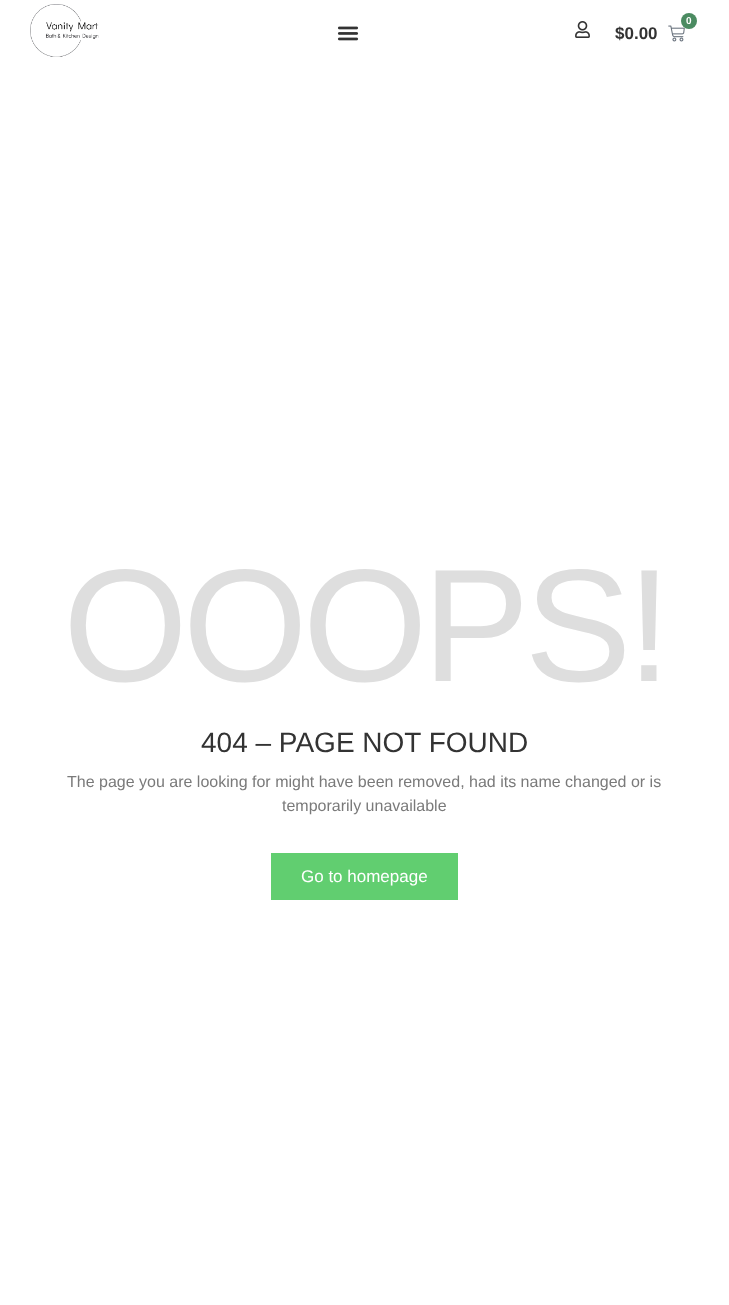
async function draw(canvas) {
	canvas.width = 729;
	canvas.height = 1305;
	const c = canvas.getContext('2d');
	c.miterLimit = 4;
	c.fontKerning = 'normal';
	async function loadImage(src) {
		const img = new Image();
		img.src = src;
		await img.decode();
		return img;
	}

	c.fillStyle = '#fff';
	c.fillRect(0, 0, 729, 1305);
	c.drawImage(await loadImage('img1.png'), 30, 4, 69, 53);
	c.drawImage(await loadImage('img2.png'), 337, 26, 22, 15);
	c.drawImage(await loadImage('img3.png'), 575, 21, 15, 17);
	c.drawImage(await loadImage('img4.png'), 668, 25, 17, 17);
	c.fillStyle = '#4b8b61';
	c.beginPath();
	c.arc(689, 21, 8, 0, 2 * Math.PI);
	c.fill();
	c.font = 'bold 10px Liberation Sans';
	c.fillStyle = '#fff';
	c.fillText('0', 686, 24);
	c.font = 'bold 17px Liberation Sans';
	c.fillStyle = '#333';
	c.fillText('$0.00', 615, 39);
	c.letterSpacing = '-5px';
	c.font = '160.5px Liberation Sans';
	c.fillStyle = '#dedede';
	c.fillText('OOOPS!', 63, 681);
	c.letterSpacing = '0px';
	c.font = '28px Liberation Sans';
	c.fillStyle = '#333';
	c.fillText('404 – PAGE NOT FOUND', 201, 752);
	c.font = '16px Liberation Sans';
	c.fillStyle = '#7a7a7a';
	c.fillText('The page you are looking for might have been removed, had its name changed or is', 67, 787);
	c.fillText('temporarily unavailable', 282, 811);
	c.fillStyle = '#61ce70';
	c.fillRect(271, 853, 187, 47);
	c.font = '17px Liberation Sans';
	c.fillStyle = '#fff';
	c.fillText('Go to homepage', 301, 882);
}

draw(document.querySelector('canvas'));
